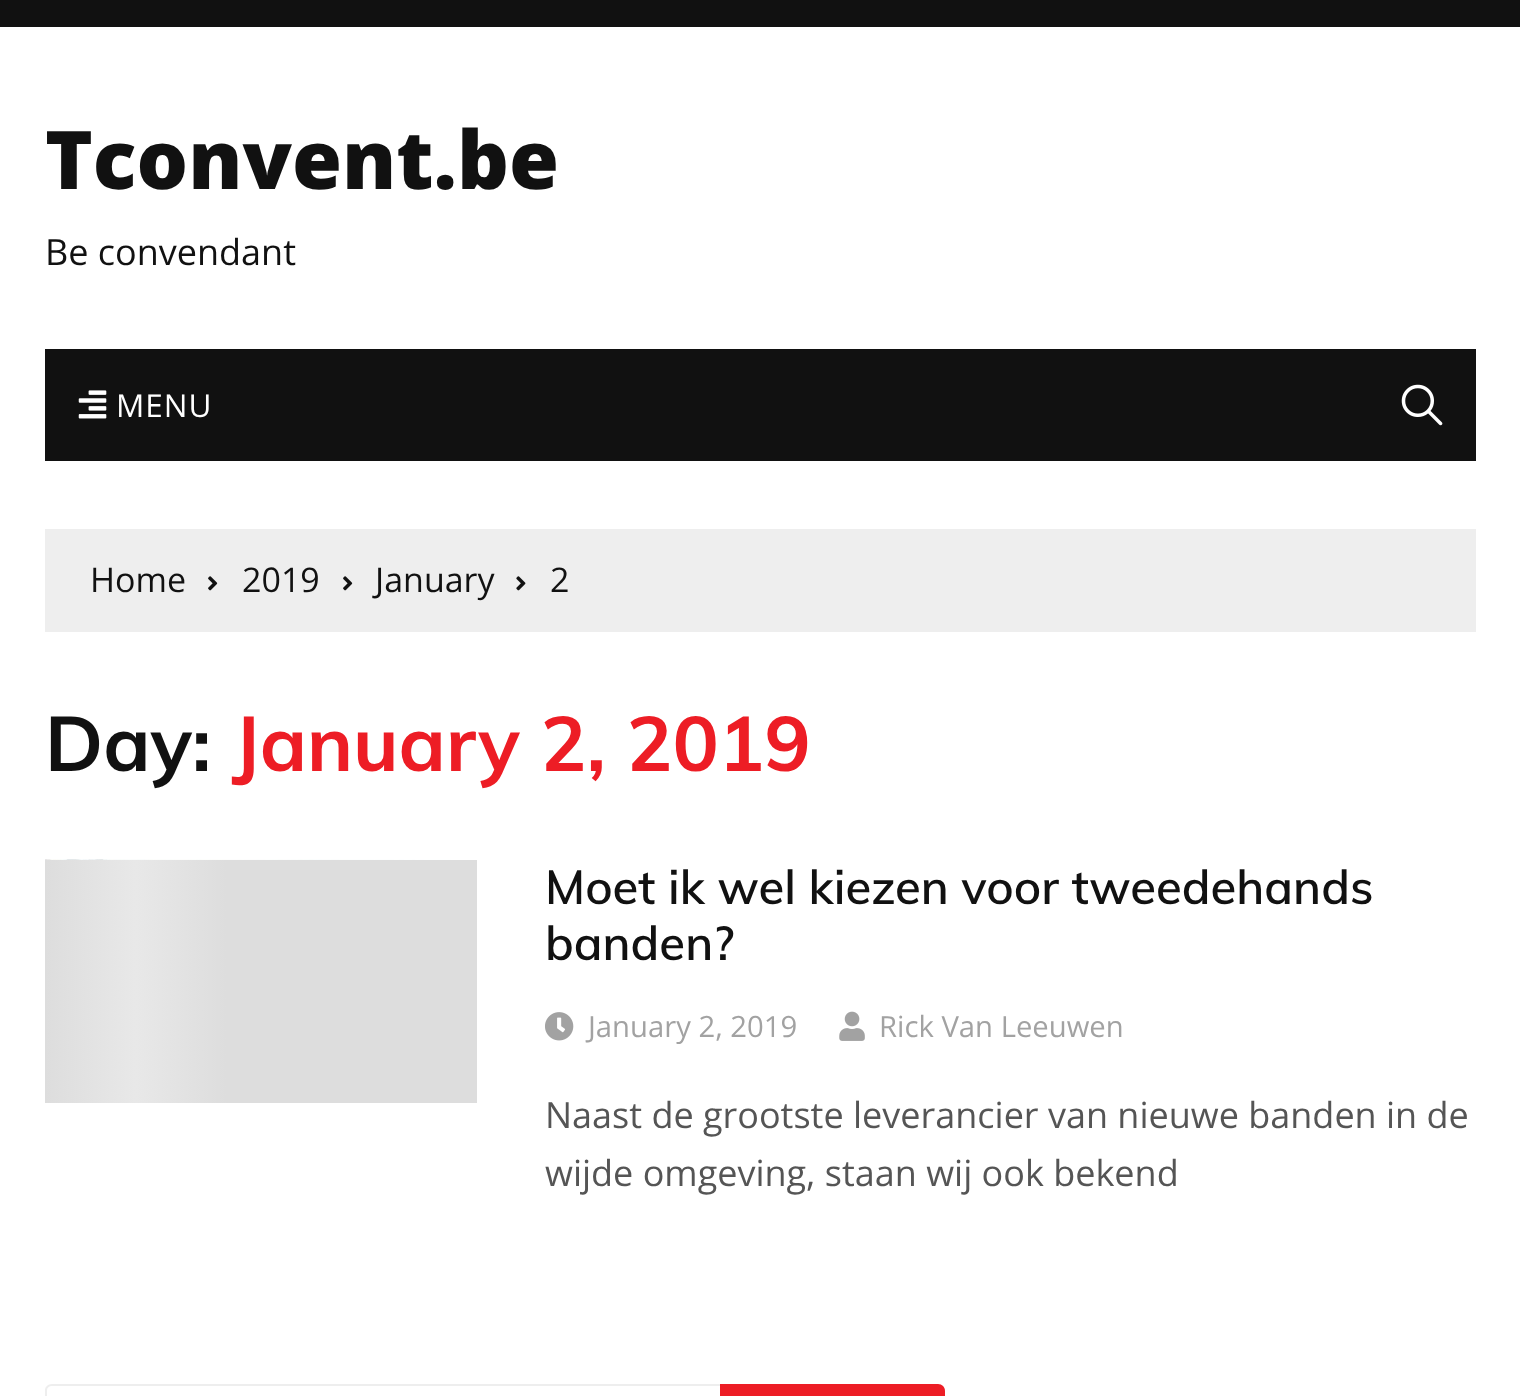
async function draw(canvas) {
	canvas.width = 1520;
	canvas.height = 1396;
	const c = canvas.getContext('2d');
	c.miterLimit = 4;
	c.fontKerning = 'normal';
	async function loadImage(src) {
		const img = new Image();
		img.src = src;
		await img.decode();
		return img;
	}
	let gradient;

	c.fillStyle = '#fff';
	c.fillRect(0, 0, 1520, 1396);
	c.fillStyle = '#111';
	c.fillRect(0, 0, 1520, 27);
	c.font = '800 81px Open Sans';
	c.fillText('Tconvent.be', 45, 189);
	c.font = '36px Open Sans';
	c.fillText('Be convendant', 45, 265);
	c.fillRect(45, 349, 1431, 112);
	c.drawImage(await loadImage('img1.png'), 78, 390, 29, 29);
	c.letterSpacing = '1px';
	c.font = '31.5px Open Sans';
	c.fillStyle = '#fff';
	c.fillText('MENU', 116, 417);
	c.drawImage(await loadImage('img2.png'), 1401, 384, 42, 42);
	c.fillStyle = '#eee';
	c.fillRect(45, 529, 1431, 103);
	c.letterSpacing = '0px';
	c.font = '34px Open Sans';
	c.fillStyle = '#111';
	c.fillText('Home', 90, 592);
	c.drawImage(await loadImage('img3.png'), 208, 576, 10, 15);
	c.fillText('2019', 242, 592);
	c.drawImage(await loadImage('img3.png'), 343, 576, 10, 15);
	c.fillText('January', 375, 592);
	c.drawImage(await loadImage('img4.png'), 516, 576, 10, 15);
	c.fillText('2', 550, 592);
	c.font = 'bold 76.5px Muli';
	c.fillText('Day:', 45, 771);
	c.fillStyle = '#ed1d25';
	c.fillText('January 2, 2019', 232, 771);
	c.drawImage(await loadImage('img5.png'), 45, 859, 432, 1);
	gradient = c.createLinearGradient(45, 981, 477, 981);
	gradient.addColorStop(0, '#ddd');
	gradient.addColorStop(0.21, '#e8e8e8');
	gradient.addColorStop(0.42, '#ddd');
	c.fillStyle = gradient;
	c.fillRect(45, 860, 432, 243);
	c.font = '600 47.25px Muli';
	c.fillStyle = '#111';
	c.fillText('Moet ik wel kiezen voor tweedehands', 545, 904);
	c.fillText('banden?', 545, 960);
	c.drawImage(await loadImage('img6.png'), 545, 1012, 29, 29);
	c.font = '29.25px Open Sans';
	c.fillStyle = '#a2a2a2';
	c.fillText('January 2, 2019', 588, 1037);
	c.drawImage(await loadImage('img7.png'), 839, 1011, 26, 30);
	c.fillText('Rick Van Leeuwen', 879, 1037);
	c.font = '36px Open Sans';
	c.fillStyle = '#555';
	c.fillText('Naast de grootste leverancier van nieuwe banden in de', 545, 1128);
	c.fillText('wijde omgeving, staan wij ook bekend', 545, 1186);
	c.fillStyle = '#eee';
	c.beginPath();
	c.moveTo(52, 1384);
	c.lineTo(720, 1384);
	c.lineTo(720, 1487);
	c.lineTo(52, 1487);
	c.bezierCurveTo(48, 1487, 45, 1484, 45, 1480);
	c.lineTo(45, 1390);
	c.bezierCurveTo(45, 1387, 48, 1384, 52, 1384);
	c.closePath();
	c.moveTo(52, 1386);
	c.lineTo(720, 1386);
	c.lineTo(720, 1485);
	c.lineTo(52, 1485);
	c.bezierCurveTo(49, 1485, 47, 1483, 47, 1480);
	c.lineTo(47, 1390);
	c.bezierCurveTo(47, 1388, 49, 1386, 52, 1386);
	c.closePath();
	c.fill('evenodd');
	c.fillStyle = '#ed1d25';
	c.beginPath();
	c.moveTo(720, 1384);
	c.lineTo(938, 1384);
	c.bezierCurveTo(942, 1384, 945, 1387, 945, 1391);
	c.lineTo(945, 1396);
	c.bezierCurveTo(945, 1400, 942, 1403, 938, 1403);
	c.lineTo(720, 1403);
	c.closePath();
	c.fill();
}

draw(document.querySelector('canvas'));
